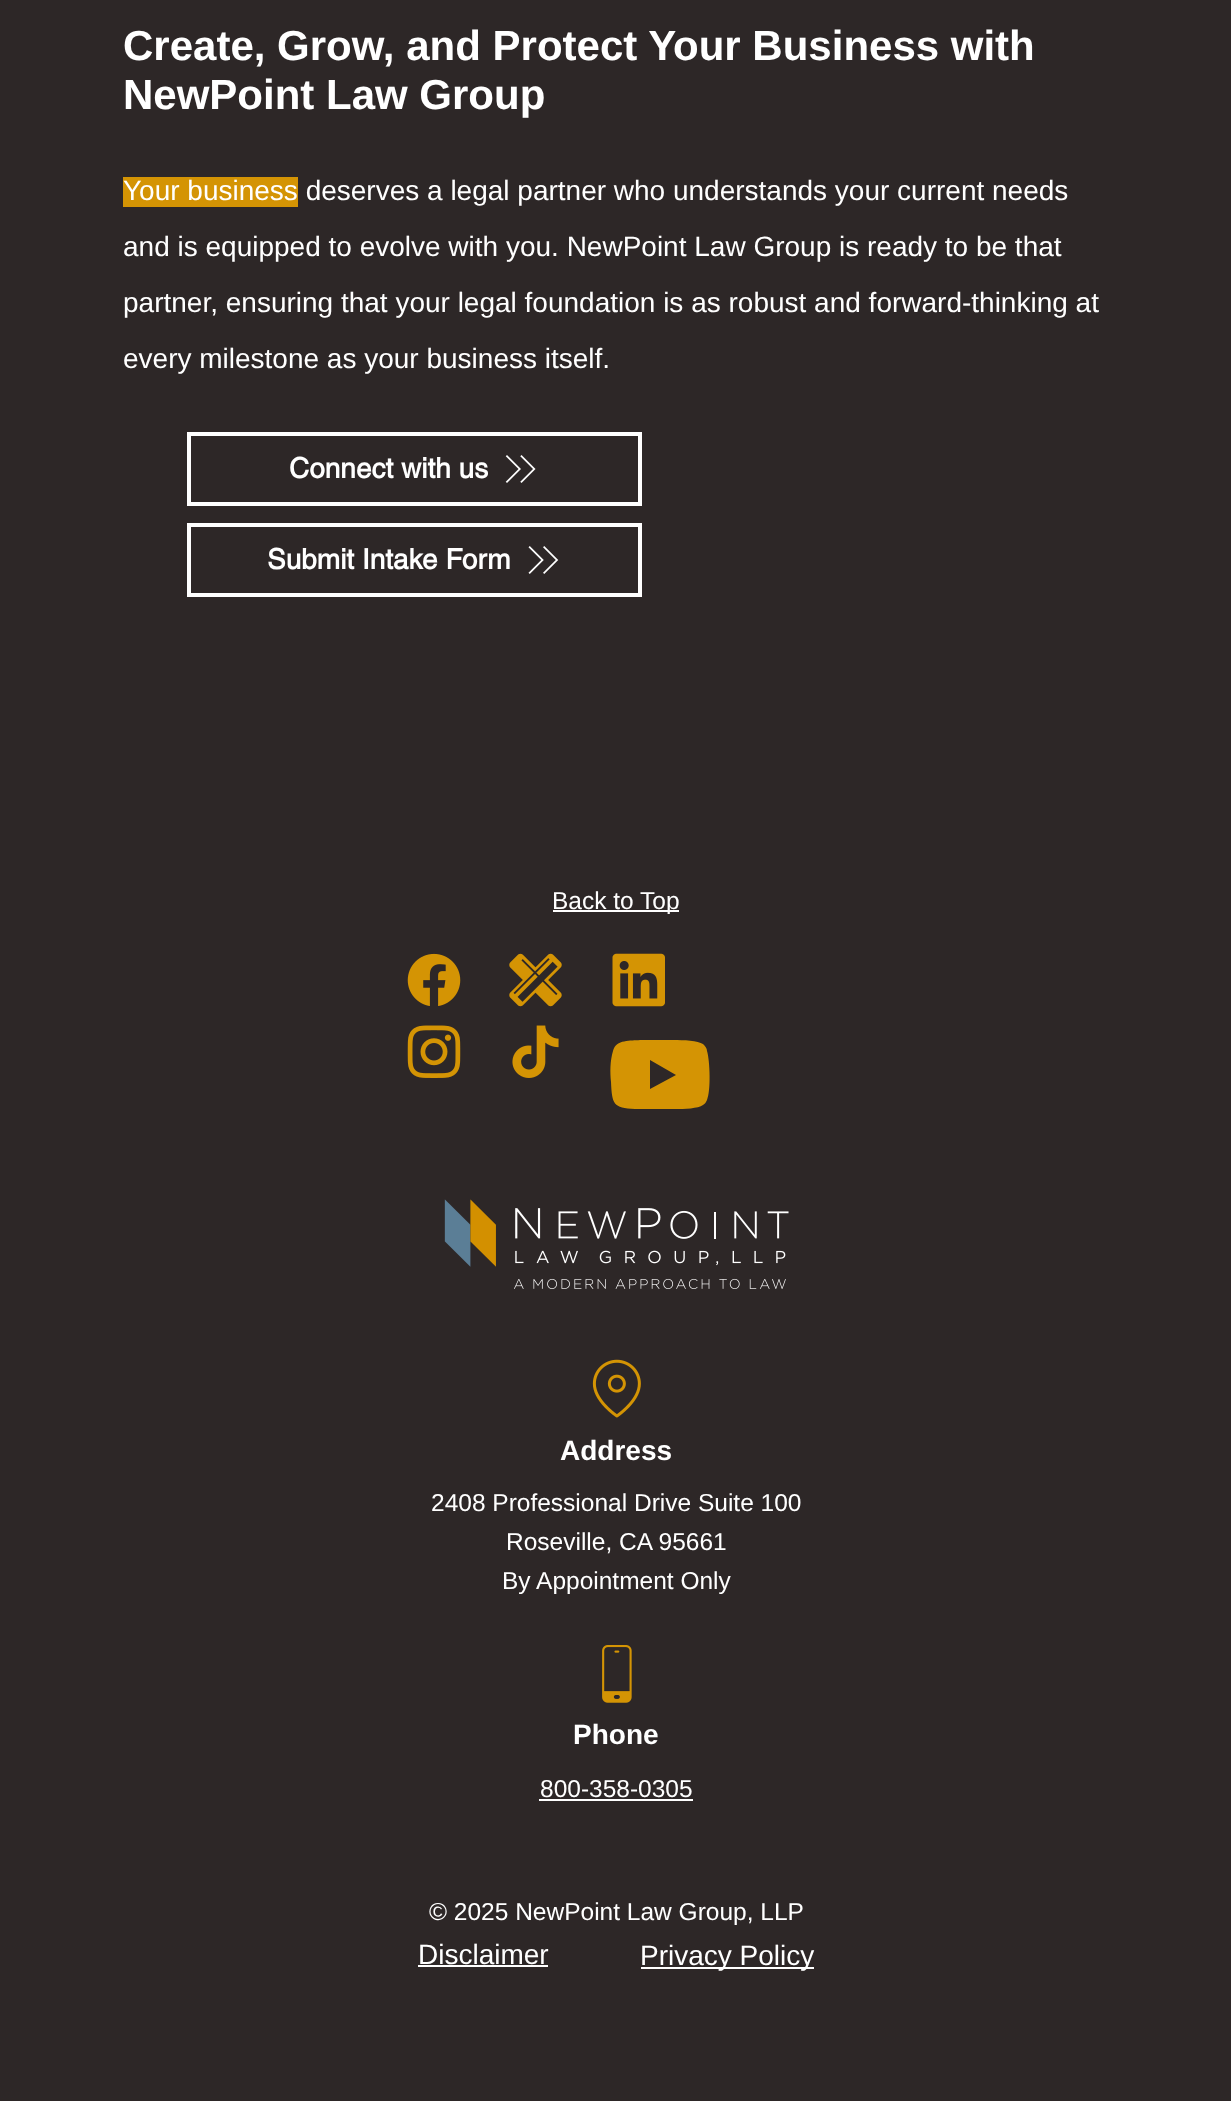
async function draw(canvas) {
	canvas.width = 1231;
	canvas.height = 2101;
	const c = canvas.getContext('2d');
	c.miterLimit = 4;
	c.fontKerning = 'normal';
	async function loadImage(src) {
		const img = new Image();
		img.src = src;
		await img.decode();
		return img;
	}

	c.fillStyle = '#2d2727';
	c.fillRect(0, 0, 1231, 2101);
	c.font = 'bold 42px Liberation Sans';
	c.fillStyle = '#fff';
	c.fillText('Create, Grow, and Protect Your Business with', 123, 60);
	c.fillText('NewPoint Law Group', 123, 109);
	c.fillStyle = '#d49404';
	c.fillRect(123, 177, 175, 30);
	c.font = '28px Liberation Sans';
	c.fillStyle = '#fff';
	for (const [text, x, y] of [
		['Your business deserves a legal partner who understands your current needs', 123, 200],
		['and is equipped to evolve with you. NewPoint Law Group is ready to be that', 123, 256],
		['partner, ensuring that your legal foundation is as robust and forward-thinking at', 123, 312],
		['every milestone as your business itself.', 123, 368],
	]) {
		c.fillText(text, x, y);
	}
	c.strokeStyle = '#fff';
	c.lineWidth = 4;
	c.strokeRect(189, 434, 451, 70);
	c.font = 'bold 28px helvetica';
	c.fillText('Connect with us', 289, 478);
	c.drawImage(await loadImage('img1.png'), 505, 455, 31, 28);
	c.strokeRect(189, 525, 451, 70);
	c.fillText('Submit Intake Form', 267, 569);
	c.drawImage(await loadImage('img2.png'), 528, 546, 31, 28);
	c.fillRect(553, 910, 126, 2);
	c.font = '24.5px Liberation Sans';
	c.fillText('Back to Top', 552, 909);
	c.drawImage(await loadImage('img3.png'), 407, 953, 54, 53);
	c.drawImage(await loadImage('img4.png'), 509, 953, 53, 54);
	c.drawImage(await loadImage('img5.png'), 612, 953, 53, 54);
	c.drawImage(await loadImage('img6.png'), 407, 1025, 54, 53);
	c.drawImage(await loadImage('img7.png'), 512, 1025, 47, 53);
	c.fillStyle = '#d49404';
	c.beginPath();
	c.moveTo(650, 1060);
	c.lineTo(650, 1089);
	c.lineTo(676, 1075);
	c.closePath();
	c.moveTo(662, 1040);
	c.bezierCurveTo(671, 1040, 696, 1039, 703, 1044);
	c.bezierCurveTo(705, 1046, 707, 1048, 707, 1051);
	c.bezierCurveTo(710, 1061, 711, 1091, 707, 1100);
	c.bezierCurveTo(706, 1102, 705, 1104, 703, 1105);
	c.bezierCurveTo(696, 1110, 673, 1109, 664, 1109);
	c.lineTo(635, 1109);
	c.bezierCurveTo(613, 1108, 612, 1104, 611, 1082);
	c.bezierCurveTo(610, 1072, 610, 1061, 613, 1051);
	c.bezierCurveTo(616, 1039, 631, 1041, 640, 1040);
	c.closePath();
	c.fill('evenodd');
	c.drawImage(await loadImage('img8.png'), 444, 1199, 345, 90);
	c.drawImage(await loadImage('img9.png'), 592, 1359, 49, 59);
	c.font = 'bold 28px Liberation Sans';
	c.fillStyle = '#fff';
	c.fillText('Address', 560, 1460);
	c.font = '24.5px Liberation Sans';
	for (const [text, x, y] of [
		['2408 Professional Drive Suite 100', 431, 1511],
		['Roseville, CA 95661', 506, 1550],
		['By Appointment Only', 502, 1589],
	]) {
		c.fillText(text, x, y);
	}
	c.drawImage(await loadImage('img10.png'), 602, 1645, 30, 58);
	c.font = 'bold 28px Liberation Sans';
	c.fillText('Phone', 573, 1744);
	c.font = '24.5px Liberation Sans';
	c.fillText('800-358-0305', 540, 1797);
	c.fillRect(539, 1799, 154, 2);
	c.fillText('© 2025 NewPoint Law Group, LLP', 429, 1920);
	c.font = '28px Liberation Sans';
	c.fillText('Disclaimer', 418, 1964);
	c.fillRect(418, 1965, 130, 2);
	c.fillRect(641, 1967, 173, 2);
	c.fillText('Privacy Policy', 640, 1965);
}

draw(document.querySelector('canvas'));
